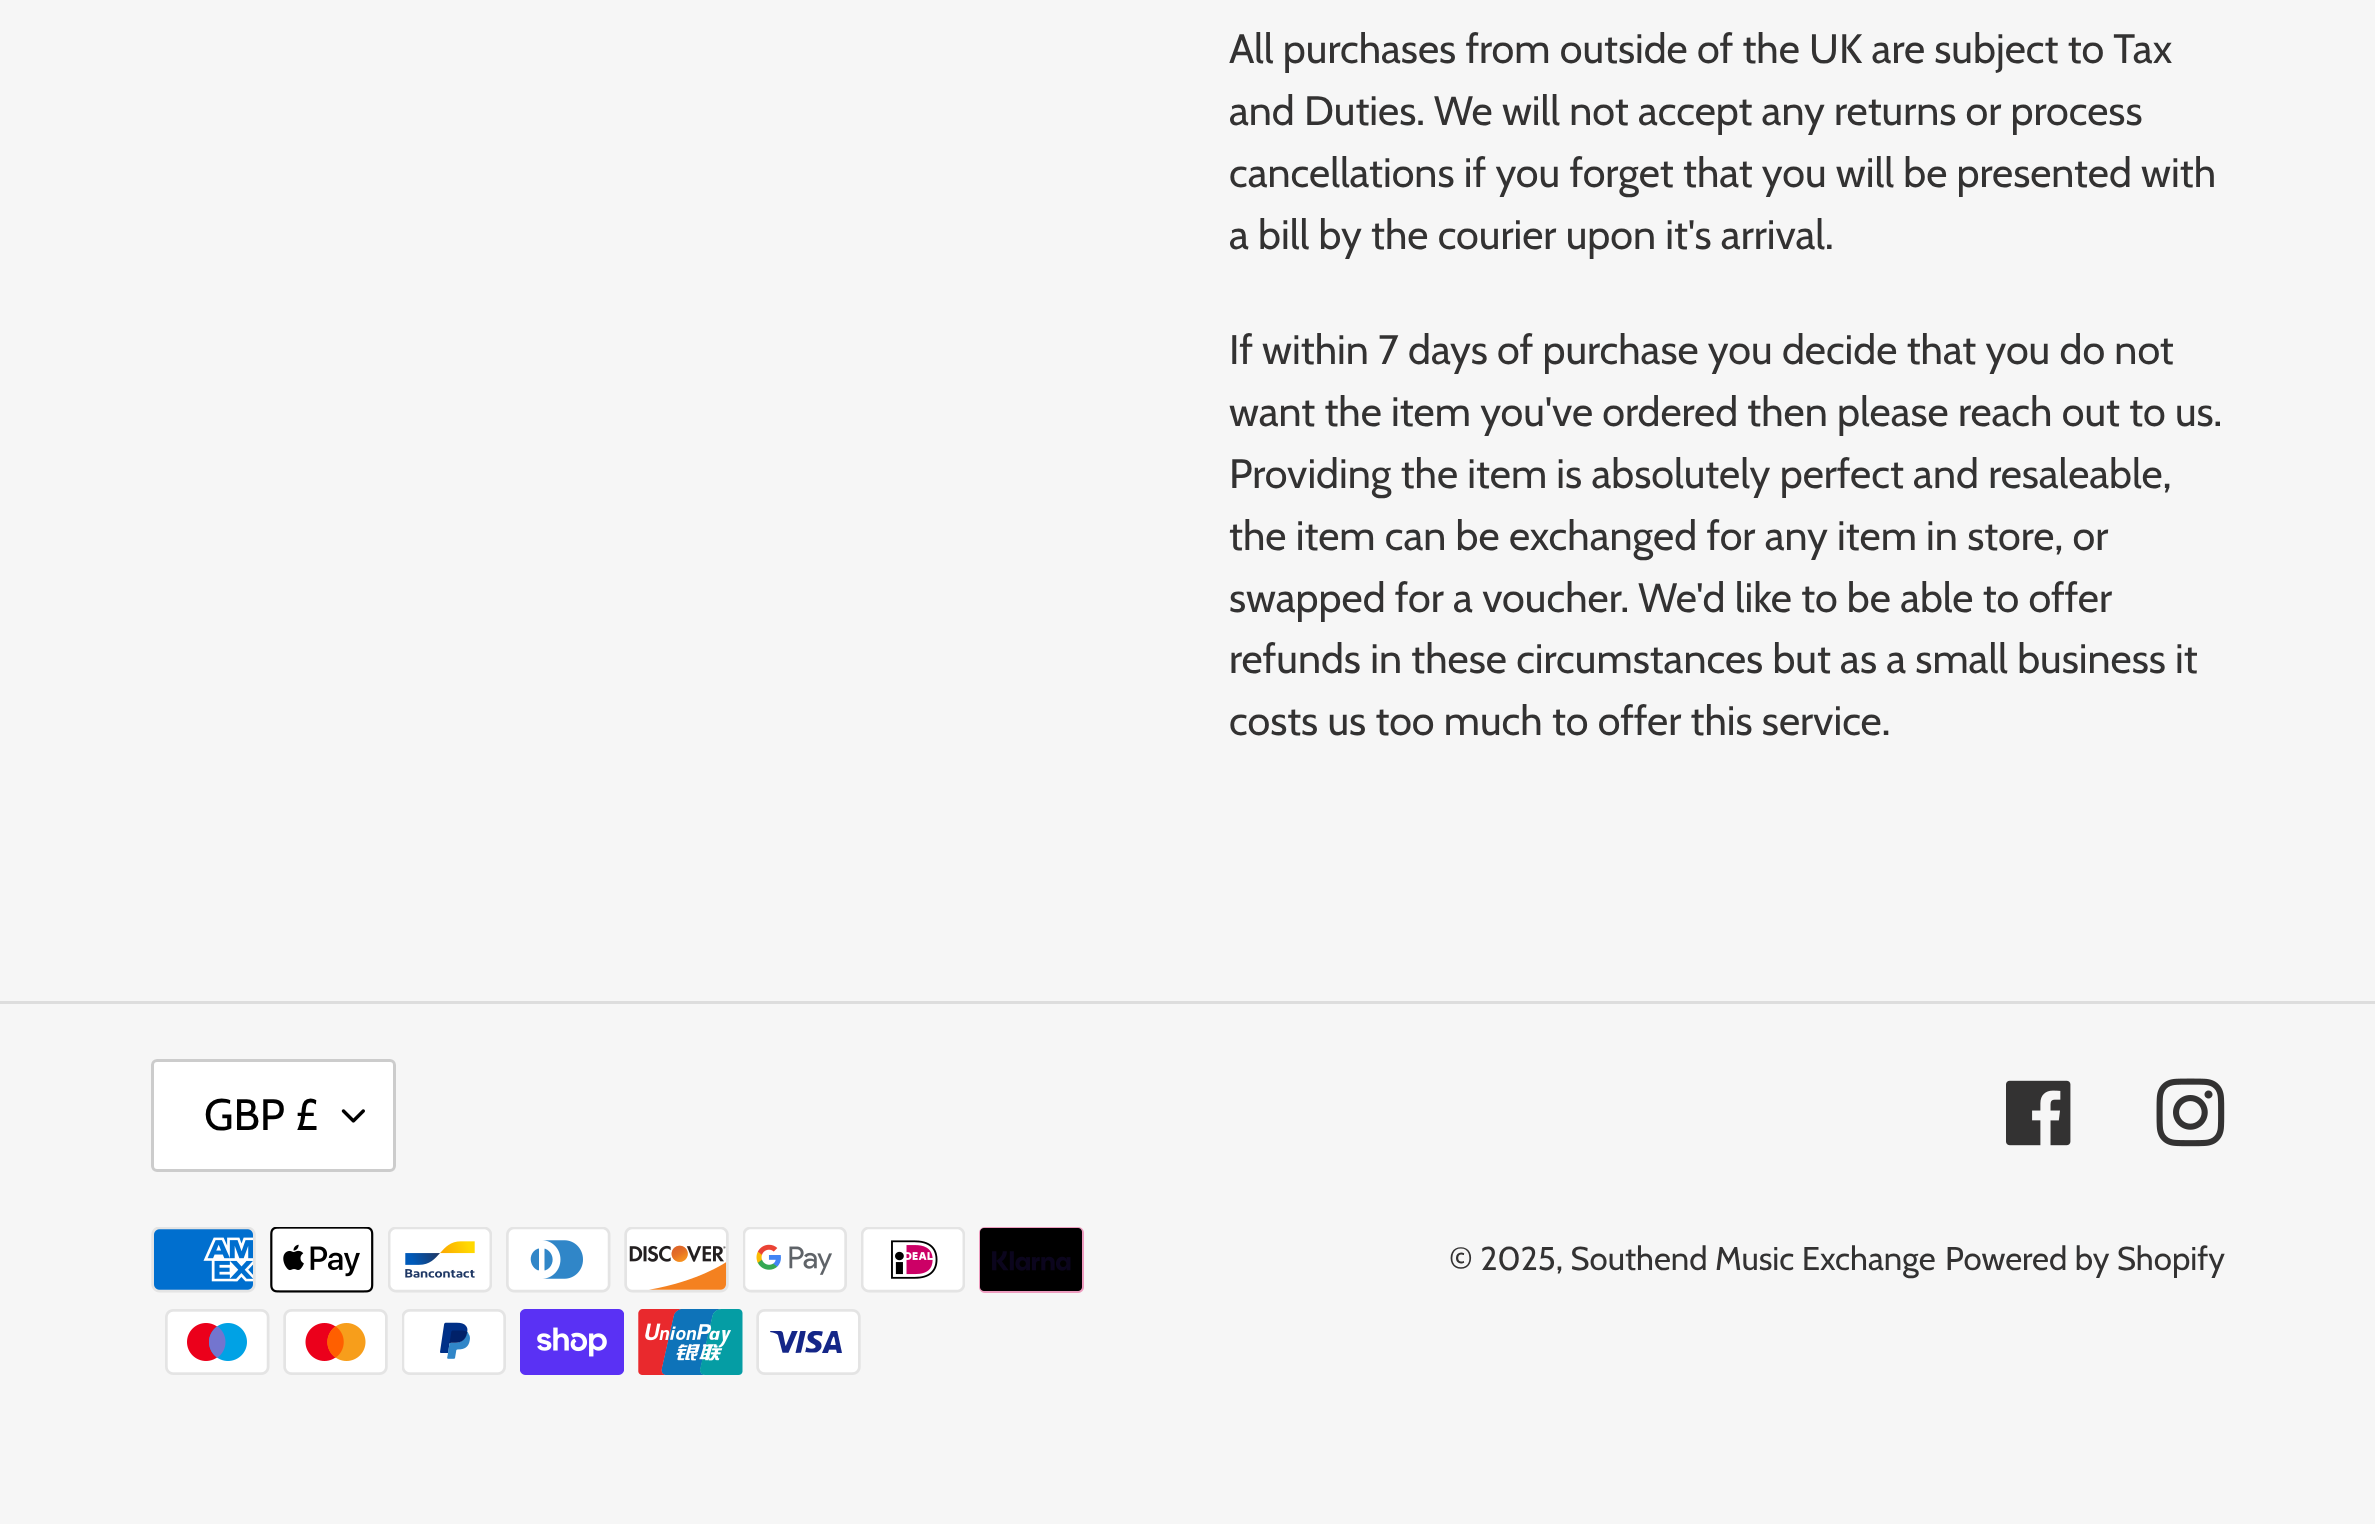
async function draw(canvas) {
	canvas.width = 2375;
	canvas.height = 1524;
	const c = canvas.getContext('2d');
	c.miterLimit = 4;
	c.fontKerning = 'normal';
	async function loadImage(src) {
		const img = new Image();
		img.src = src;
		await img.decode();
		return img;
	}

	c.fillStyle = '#f6f6f6';
	c.fillRect(0, 0, 2375, 1524);
	c.font = '41.25px Cabin';
	c.fillStyle = '#333232';
	for (const [text, x, y] of [
		['All purchases from outside of the UK are subject to Tax', 1229, 63],
		['and Duties. We will not accept any returns or process', 1229, 125],
		['cancellations if you forget that you will be presented with', 1229, 187],
		['a bill by the courier upon it\'s arrival.', 1229, 249],
		['If within 7 days of purchase you decide that you do not', 1229, 364],
		['want the item you\'ve ordered then please reach out to us.', 1229, 426],
		['Providing the item is absolutely perfect and resaleable,', 1229, 488],
		['the item can be exchanged for any item in store, or', 1229, 550],
		['swapped for a voucher. We\'d like to be able to offer', 1229, 612],
		['refunds in these circumstances but as a small business it', 1229, 673],
		['costs us too much to offer this service.', 1229, 735],
	]) {
		c.fillText(text, x, y);
	}
	c.fillStyle = '#ddd';
	c.fillRect(0, 1001, 2375, 3);
	c.fillStyle = '#fff';
	c.beginPath();
	c.roundRect(151, 1059, 245, 113, 6);
	c.fill();
	c.drawImage(await loadImage('img1.png'), 341, 1109, 24, 14);
	c.beginPath();
	c.roundRect(152.5, 1060.5, 242, 110, 4.5);
	c.strokeStyle = '#ccc';
	c.lineWidth = 3;
	c.stroke();
	c.font = '44px Cabin';
	c.fillStyle = '#000';
	c.fillText('GBP £', 204, 1130);
	c.drawImage(await loadImage('img2.png'), 2006, 1080, 65, 66);
	c.drawImage(await loadImage('img3.png'), 2156, 1078, 69, 69);
	c.drawImage(await loadImage('img4.png'), 151, 1227, 105, 66);
	c.drawImage(await loadImage('img5.png'), 270, 1227, 104, 66);
	c.drawImage(await loadImage('img6.png'), 388, 1227, 104, 66);
	c.drawImage(await loadImage('img7.png'), 506, 1227, 105, 66);
	c.drawImage(await loadImage('img8.png'), 624, 1227, 105, 66);
	c.drawImage(await loadImage('img9.png'), 743, 1227, 104, 66);
	c.drawImage(await loadImage('img10.png'), 861, 1227, 104, 66);
	c.drawImage(await loadImage('img11.png'), 979, 1227, 105, 66);
	c.drawImage(await loadImage('img12.png'), 165, 1309, 105, 66);
	c.drawImage(await loadImage('img13.png'), 283, 1309, 105, 66);
	c.drawImage(await loadImage('img14.png'), 402, 1309, 104, 66);
	c.drawImage(await loadImage('img15.png'), 520, 1309, 104, 66);
	c.drawImage(await loadImage('img16.png'), 638, 1309, 105, 66);
	c.drawImage(await loadImage('img17.png'), 756, 1309, 105, 66);
	c.font = '33px Cabin';
	c.fillStyle = '#333232';
	c.fillText('© 2025, Southend Music Exchange', 1449, 1270);
	c.fillText('Powered by Shopify', 1945, 1270);
}

draw(document.querySelector('canvas'));
